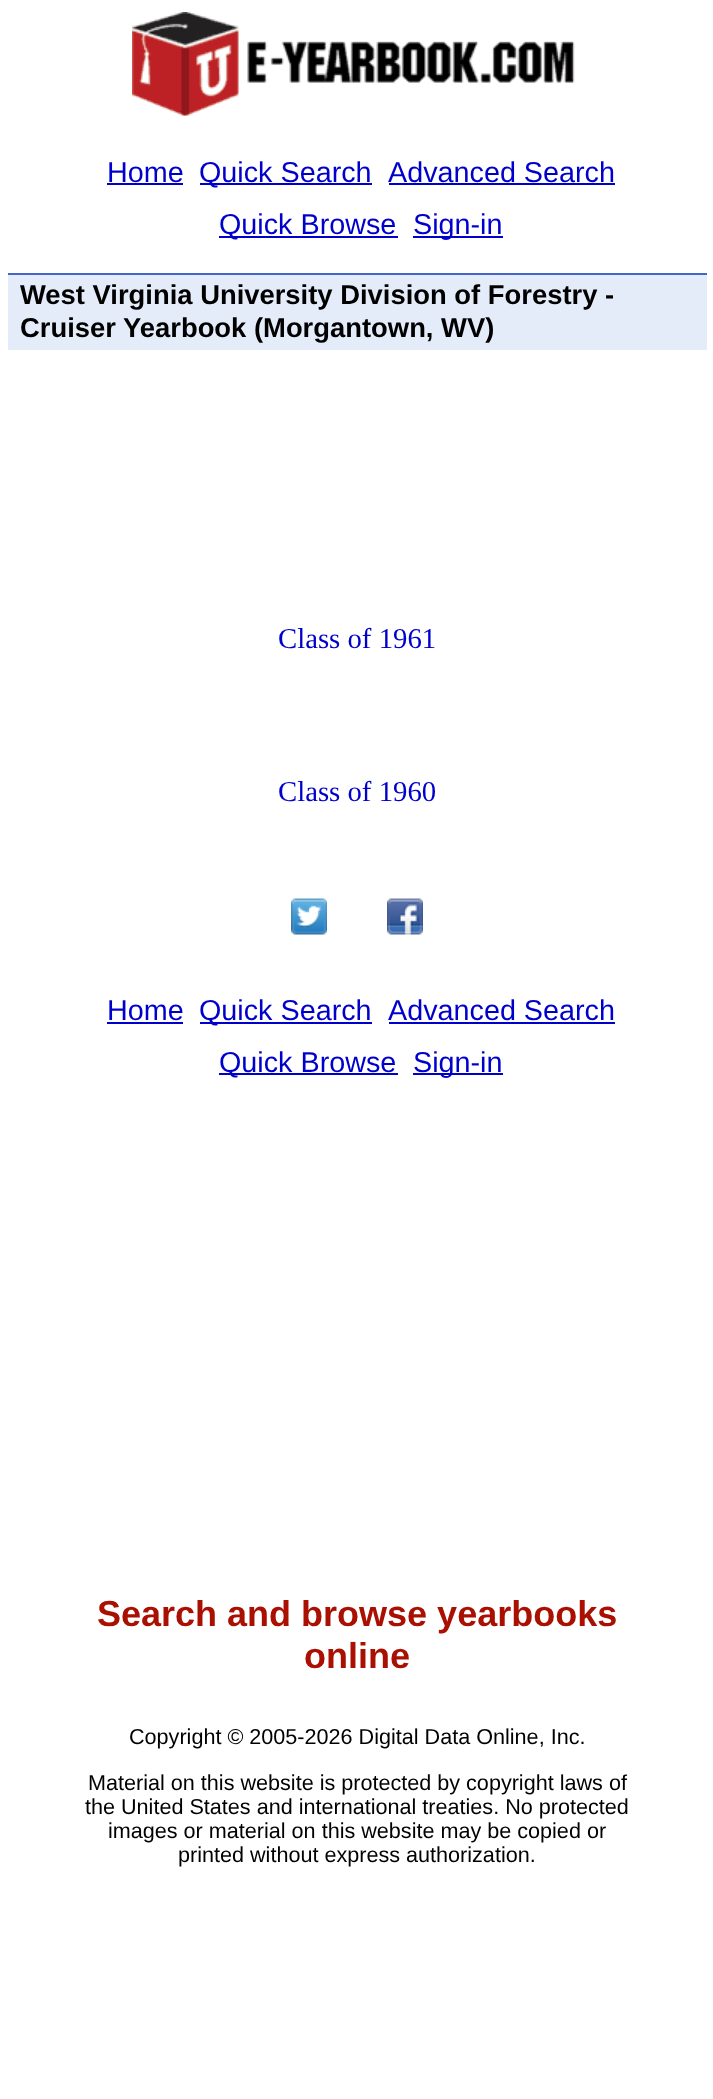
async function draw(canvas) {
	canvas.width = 713;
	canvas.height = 2099;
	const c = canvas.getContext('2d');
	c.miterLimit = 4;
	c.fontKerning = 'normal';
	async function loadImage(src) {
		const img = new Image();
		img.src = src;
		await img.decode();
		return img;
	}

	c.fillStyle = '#fff';
	c.fillRect(0, 0, 713, 2099);
	c.drawImage(await loadImage('img1.png'), 132, 12, 443, 104);
	c.font = '28.75px Liberation Sans';
	c.fillStyle = '#00c';
	c.fillText('Home', 107, 182);
	c.fillRect(107, 183, 76, 2);
	c.fillRect(200, 183, 172, 2);
	c.fillText('Quick Search', 199, 182);
	c.fillText('Advanced Search', 388, 182);
	c.fillRect(389, 183, 226, 2);
	c.fillRect(219, 236, 179, 2);
	c.fillText('Quick Browse', 219, 234);
	c.fillRect(413, 236, 90, 2);
	c.fillText('Sign-in', 413, 234);
	c.fillStyle = '#e5ecf9';
	c.fillRect(8, 275, 699, 75);
	c.fillStyle = '#46c';
	c.fillRect(8, 273, 699, 2);
	c.font = 'bold 27.4px Liberation Sans';
	c.fillStyle = '#000';
	c.fillText('West Virginia University Division of Forestry -', 20, 304);
	c.fillText('Cruiser Yearbook (Morgantown, WV)', 20, 337);
	c.font = '28.75px Liberation Serif';
	c.fillStyle = '#00c';
	c.fillText('Class of 1961', 278, 648);
	c.fillText('Class of 1960', 278, 801);
	c.drawImage(await loadImage('img2.png'), 291, 898, 36, 37);
	c.drawImage(await loadImage('img3.png'), 387, 898, 36, 37);
	c.font = '28.75px Liberation Sans';
	c.fillText('Home', 107, 1020);
	c.fillRect(107, 1022, 76, 2);
	c.fillRect(200, 1022, 172, 2);
	c.fillText('Quick Search', 199, 1020);
	c.fillText('Advanced Search', 388, 1020);
	c.fillRect(389, 1022, 226, 2);
	c.fillRect(219, 1073, 179, 2);
	c.fillText('Quick Browse', 219, 1072);
	c.fillRect(413, 1073, 90, 2);
	c.fillText('Sign-in', 413, 1072);
	c.font = 'bold 36px Liberation Sans';
	c.fillStyle = '#aa1002';
	c.fillText('Search and browse yearbooks', 97, 1626);
	c.fillText('online', 304, 1668);
	c.font = '21.6px Liberation Sans';
	c.fillStyle = '#000';
	for (const [text, x, y] of [
		['Copyright © 2005-2026 Digital Data Online, Inc.', 129, 1744],
		['Material on this website is protected by copyright laws of', 88, 1790],
		['the United States and international treaties. No protected', 85, 1814],
		['images or material on this website may be copied or', 108, 1838],
		['printed without express authorization.', 178, 1862],
	]) {
		c.fillText(text, x, y);
	}
}

draw(document.querySelector('canvas'));
